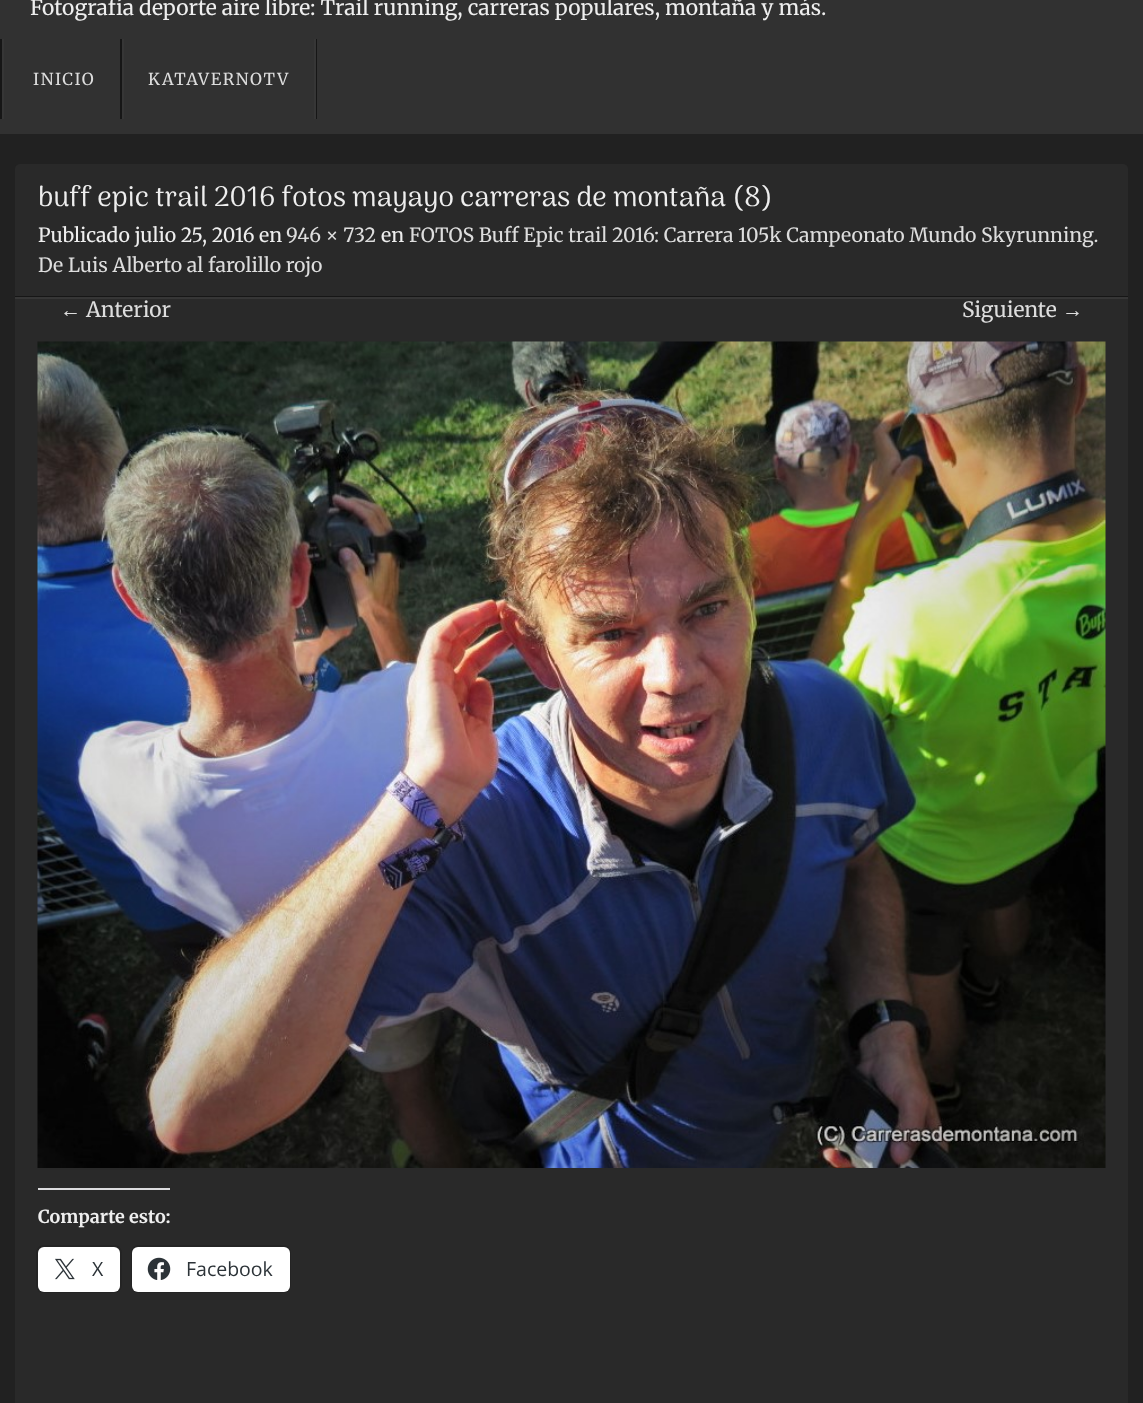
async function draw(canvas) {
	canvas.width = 1143;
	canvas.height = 1403;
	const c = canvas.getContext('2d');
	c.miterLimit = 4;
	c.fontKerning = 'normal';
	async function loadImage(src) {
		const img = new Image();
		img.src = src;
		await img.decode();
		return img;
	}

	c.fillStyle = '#212121';
	c.fillRect(0, 0, 1143, 1403);
	c.fillStyle = '#313131';
	c.fillRect(0, 0, 1143, 134);
	c.font = '21px Merriweather';
	c.fillStyle = '#eee';
	c.fillText('Fotografía deporte aire libre: Trail running, carreras populares, montaña y más.', 30, 15);
	c.fillStyle = '#161616';
	c.fillRect(0, 39, 2, 80);
	c.fillStyle = '#363636';
	c.fillRect(2, 39, 2, 80);
	c.letterSpacing = '1.5px';
	c.font = '16.5px Merriweather';
	c.fillStyle = '#ddd';
	c.fillText('INICIO', 33, 85);
	for (const [x, y, w, h, color] of [
		[316, 39, 1, 80, '#161616'],
		[120, 39, 2, 80, '#161616'],
		[314, 39, 2, 80, '#363636'],
		[122, 39, 2, 80, '#363636'],
	]) {
		c.fillStyle = color;
		c.fillRect(x, y, w, h);
	}
	c.fillStyle = '#ddd';
	c.fillText('KATAVERNOTV', 148, 85);
	c.fillStyle = '#292929';
	c.beginPath();
	c.roundRect(15, 164, 1113, 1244, 5);
	c.fill();
	c.fillStyle = '#161616';
	c.fillRect(15, 296, 1113, 1);
	c.letterSpacing = '0px';
	c.font = '28.2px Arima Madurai';
	c.fillStyle = '#eee';
	c.fillText('buff epic trail 2016 fotos mayayo carreras de montaña (8)', 38, 206);
	c.font = '19.5px Merriweather';
	c.fillText('Publicado julio 25, 2016 en', 38, 242);
	c.fillStyle = '#ddd';
	c.fillText('946 × 732', 286, 242);
	c.fillStyle = '#eee';
	c.fillText('en', 381, 242);
	c.fillStyle = '#ddd';
	c.fillText('FOTOS Buff Epic trail 2016: Carrera 105k Campeonato Mundo Skyrunning.', 409, 242);
	c.fillText('De Luis Alberto al farolillo rojo', 38, 272);
	c.font = '21px Liberation Serif';
	c.fillText('←', 60, 317);
	c.font = '21px Merriweather';
	c.fillText('Anterior', 86, 317);
	c.fillText('Siguiente', 962, 317);
	c.font = '21px Liberation Serif';
	c.fillText('→', 1062, 317);
	c.fillStyle = '#363636';
	c.fillRect(15, 297, 1113, 2);
	c.drawImage(await loadImage('img1.png'), 37, 341, 1069, 827);
	c.fillStyle = '#dcdcde';
	c.fillRect(38, 1188, 132, 2);
	c.font = 'bold 18px Merriweather';
	c.fillStyle = '#eee';
	c.fillText('Comparte esto:', 38, 1223);
	c.beginPath();
	c.roundRect(37, 1246, 84, 46, 7);
	c.strokeStyle = '#242424';
	c.lineWidth = 2;
	c.stroke();
	c.fillStyle = '#fff';
	c.beginPath();
	c.roundRect(38, 1247, 82, 45, 6);
	c.fill();
	c.drawImage(await loadImage('img2.png'), 55, 1258, 20, 22);
	c.font = '19.5px Open Sans';
	c.fillStyle = '#2c3338';
	c.fillText('X', 92, 1276);
	c.beginPath();
	c.roundRect(132, 1246, 158, 46, 7);
	c.stroke();
	c.fillStyle = '#fff';
	c.beginPath();
	c.roundRect(132, 1247, 158, 45, 6);
	c.fill();
	c.drawImage(await loadImage('img3.png'), 147, 1257, 24, 23);
	c.fillStyle = '#2c3338';
	c.fillText('Facebook', 186, 1276);
}

draw(document.querySelector('canvas'));
